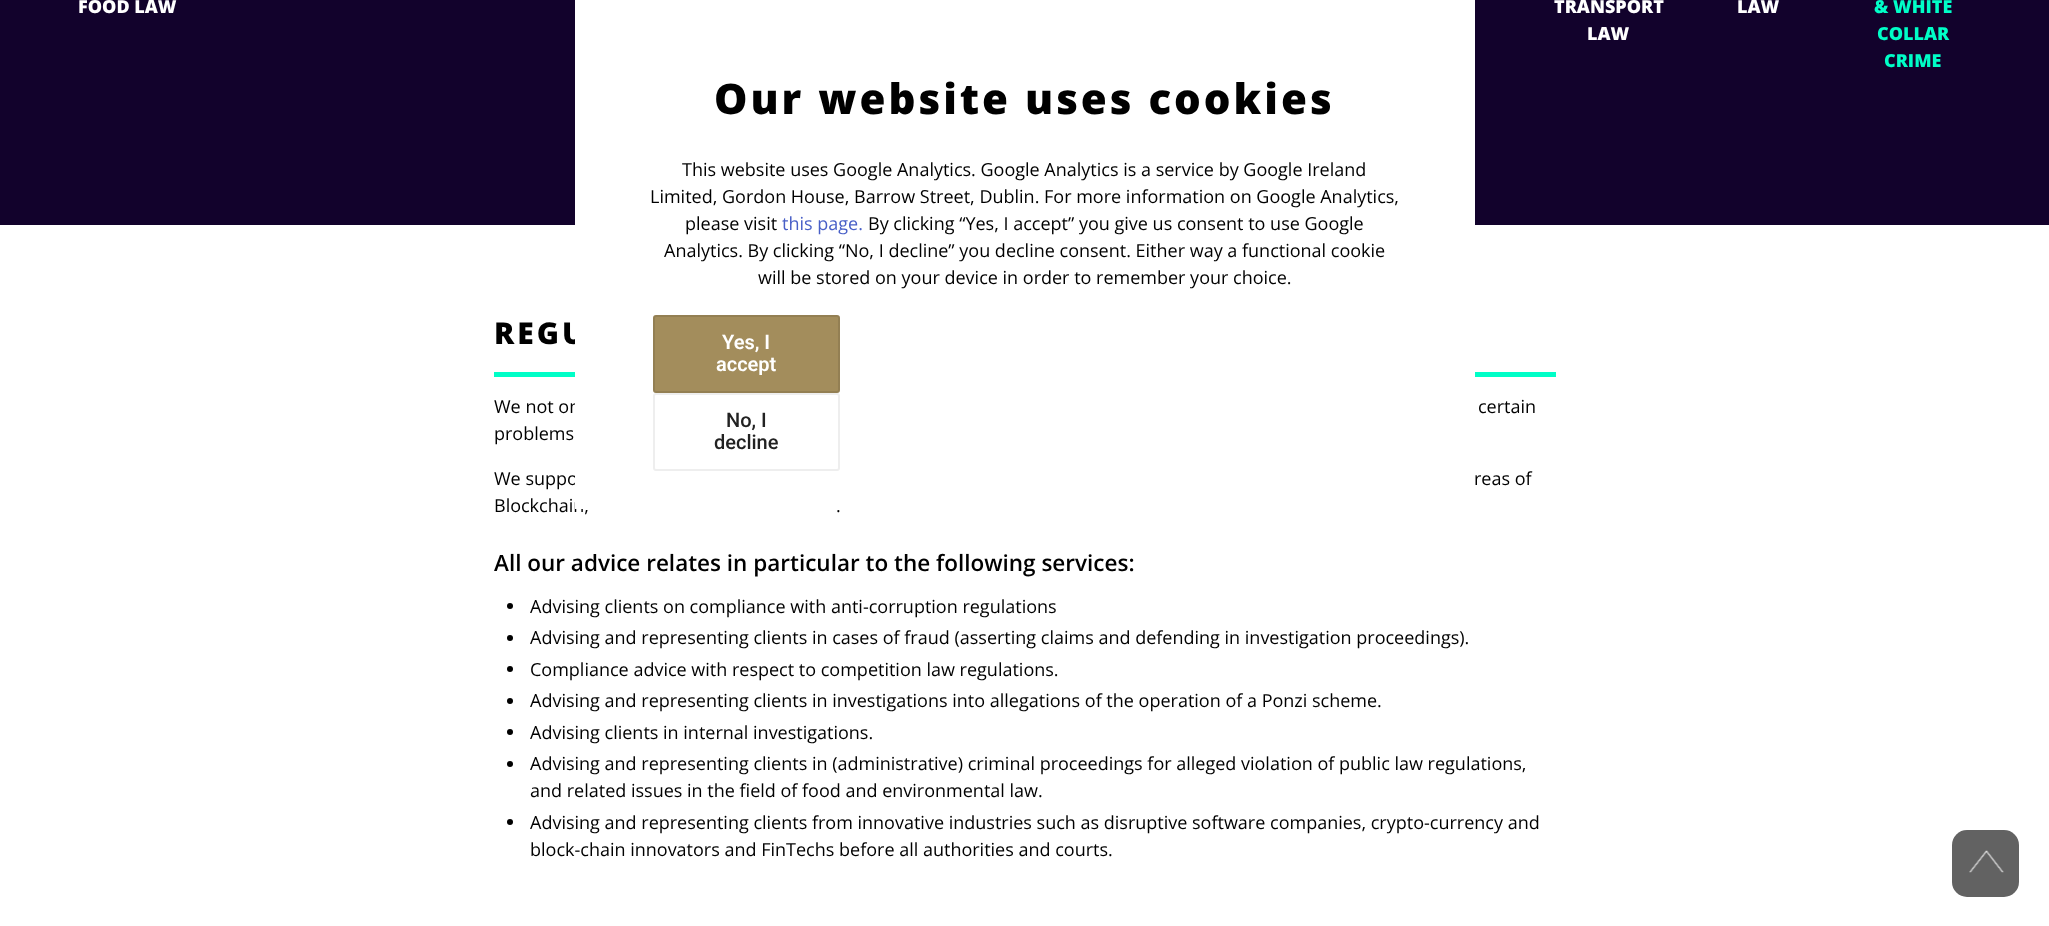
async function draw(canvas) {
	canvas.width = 2049;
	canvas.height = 926;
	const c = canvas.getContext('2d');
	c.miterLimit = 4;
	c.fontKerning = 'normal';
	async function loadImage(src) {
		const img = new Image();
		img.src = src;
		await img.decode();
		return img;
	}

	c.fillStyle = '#fff';
	c.fillRect(0, 0, 2049, 926);
	c.fillStyle = '#12022c';
	c.fillRect(0, 0, 2049, 225);
	c.font = '800 18px Open Sans';
	c.fillStyle = '#fff';
	for (const [text, x, y] of [
		['FOOD LAW', 78, 13],
		['TRANSPORT', 1554, 13],
		['LAW', 1587, 40],
		['LAW', 1737, 13],
	]) {
		c.fillText(text, x, y);
	}
	c.fillStyle = '#00fec7';
	for (const [text, x, y] of [
		['& WHITE', 1874, 13],
		['COLLAR', 1877, 40],
		['CRIME', 1884, 67],
	]) {
		c.fillText(text, x, y);
	}
	c.letterSpacing = '3px';
	c.font = '800 30px Open Sans';
	c.fillStyle = '#000';
	c.fillText('REGU', 494, 344);
	c.fillStyle = '#00fec7';
	c.fillRect(494, 372, 1062, 5);
	c.letterSpacing = '0px';
	c.font = '18px Open Sans';
	c.fillStyle = '#000';
	for (const [text, x, y] of [
		['We not on', 494, 413],
		['certain', 1478, 413],
		['problems', 494, 440],
		['We suppo', 494, 485],
		['reas of', 1474, 485],
		['Blockchain,', 494, 512],
		['.', 836, 512],
	]) {
		c.fillText(text, x, y);
	}
	c.font = '600 22.5px Open Sans';
	c.fillText('All our advice relates in particular to the following services:', 494, 571);
	c.beginPath();
	c.arc(510, 606, 3, 0, 2 * Math.PI);
	c.fill();
	c.font = '18px Open Sans';
	c.fillText('Advising clients on compliance with anti-corruption regulations', 530, 613);
	c.beginPath();
	c.arc(510, 638, 3, 0, 2 * Math.PI);
	c.fill();
	c.fillText('Advising and representing clients in cases of fraud (asserting claims and defending in investigation proceedings).', 530, 644);
	c.beginPath();
	c.arc(510, 669, 3, 0, 2 * Math.PI);
	c.fill();
	c.fillText('Compliance advice with respect to competition law regulations.', 530, 676);
	c.beginPath();
	c.arc(510, 701, 3, 0, 2 * Math.PI);
	c.fill();
	c.fillText('Advising and representing clients in investigations into allegations of the operation of a Ponzi scheme.', 530, 707);
	c.beginPath();
	c.arc(510, 732, 3, 0, 2 * Math.PI);
	c.fill();
	c.fillText('Advising clients in internal investigations.', 530, 739);
	c.beginPath();
	c.arc(510, 764, 3, 0, 2 * Math.PI);
	c.fill();
	c.fillText('Advising and representing clients in (administrative) criminal proceedings for alleged violation of public law regulations,', 530, 770);
	c.fillText('and related issues in the field of food and environmental law.', 530, 797);
	c.beginPath();
	c.arc(510, 822, 3, 0, 2 * Math.PI);
	c.fill();
	c.fillText('Advising and representing clients from innovative industries such as disruptive software companies, crypto-currency and', 530, 829);
	c.fillText('block-chain innovators and FinTechs before all authorities and courts.', 530, 856);
	c.fillStyle = '#fff';
	c.fillRect(575, 0, 900, 509);
	c.letterSpacing = '3px';
	c.font = '800 42px Open Sans';
	c.fillStyle = '#000';
	c.fillText('Our website uses cookies', 714, 114);
	c.letterSpacing = '0px';
	c.font = '18px Open Sans';
	for (const [text, x, y] of [
		['This website uses Google Analytics. Google Analytics is a service by Google Ireland', 682, 176],
		['Limited, Gordon House, Barrow Street, Dublin. For more information on Google Analytics,', 650, 203],
		['please visit', 685, 230],
	]) {
		c.fillText(text, x, y);
	}
	c.fillStyle = '#485fc7';
	c.fillText('this page.', 782, 230);
	c.fillStyle = '#000';
	for (const [text, x, y] of [
		['By clicking “Yes, I accept” you give us consent to use Google', 868, 230],
		['Analytics. By clicking “No, I decline” you decline consent. Either way a functional cookie', 664, 257],
		['will be stored on your device in order to remember your choice.', 758, 284],
	]) {
		c.fillText(text, x, y);
	}
	c.fillStyle = '#a38d5c';
	c.beginPath();
	c.roundRect(654, 316, 185, 76, 2);
	c.fill();
	c.strokeStyle = '#937f53';
	c.lineWidth = 2;
	c.stroke();
	c.font = '600 20px Roboto';
	c.fillStyle = '#fff';
	c.fillText('Yes, I', 722, 349);
	c.fillText('accept', 716, 371);
	c.beginPath();
	c.roundRect(654, 394, 185, 76, 2);
	c.strokeStyle = '#eee';
	c.stroke();
	c.font = '500 20px Roboto';
	c.fillStyle = '#222';
	c.fillText('No, I', 726, 427);
	c.fillText('decline', 714, 449);
	c.fillStyle = '#626262';
	c.beginPath();
	c.roundRect(1952, 830, 67, 67, 15);
	c.fill();
	c.drawImage(await loadImage('img1.png'), 1969, 850, 35, 23);
}

draw(document.querySelector('canvas'));
